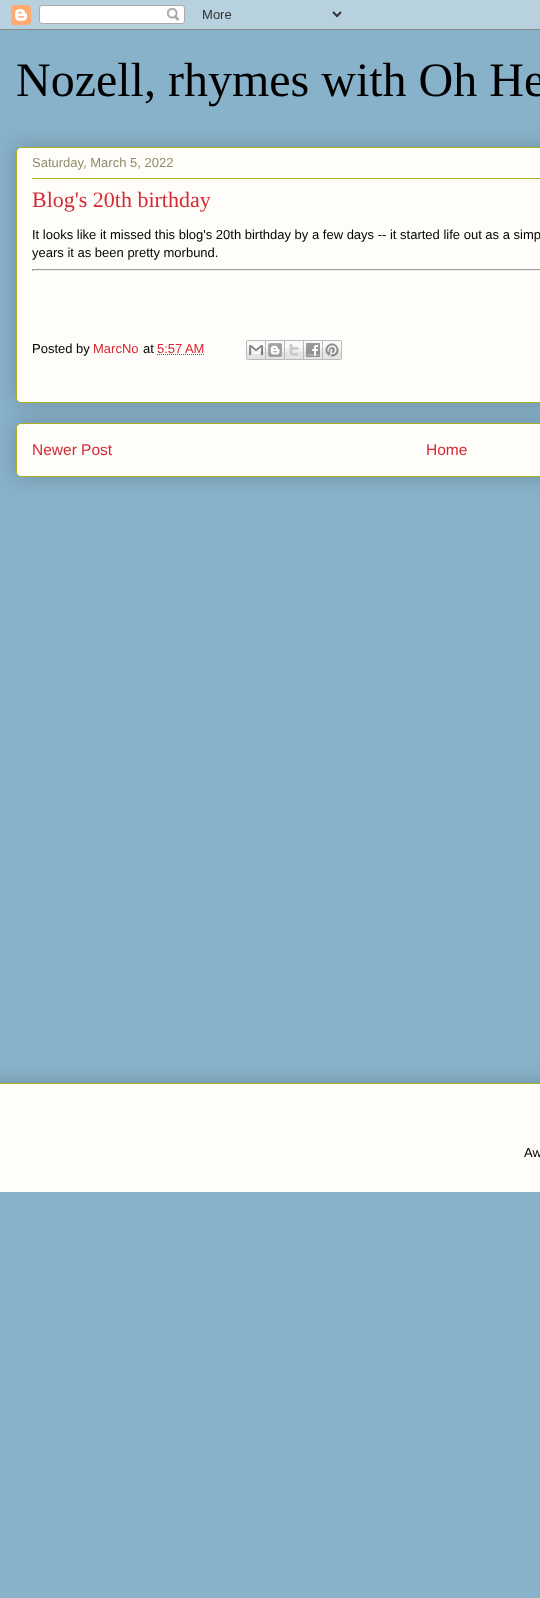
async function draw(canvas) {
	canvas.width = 540;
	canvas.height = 1598;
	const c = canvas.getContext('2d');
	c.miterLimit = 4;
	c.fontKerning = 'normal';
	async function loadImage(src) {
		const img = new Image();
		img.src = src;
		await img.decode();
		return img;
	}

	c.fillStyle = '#88b2ca';
	c.fillRect(0, 0, 540, 1598);
	c.drawImage(await loadImage('img1.png'), 0, 0, 540, 30);
	c.font = '48px Liberation Serif';
	c.fillStyle = '#000';
	c.fillText('Nozell, rhymes with Oh He', 16, 96);
	c.fillStyle = '#00000033';
	c.filter = 'blur(10px)';
	c.beginPath();
	c.roundRect(16, 423, 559, 54, 5);
	c.fill();
	c.filter = 'none';
	c.fillStyle = '#fefdfa';
	c.beginPath();
	c.roundRect(16.5, 423.5, 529, 53, 4.5);
	c.fill();
	c.strokeStyle = '#aab123';
	c.stroke();
	c.fillStyle = '#00000033';
	c.filter = 'blur(10px)';
	c.beginPath();
	c.roundRect(16, 147, 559, 256, 5);
	c.fill();
	c.filter = 'none';
	c.fillStyle = '#fefdfa';
	c.beginPath();
	c.roundRect(16.5, 147.5, 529, 255, 4.5);
	c.fill();
	c.stroke();
	c.font = '13px Liberation Sans';
	c.fillStyle = '#908d6a';
	c.fillText('Saturday, March 5, 2022', 32, 167);
	c.fillStyle = '#aab123';
	c.fillRect(32, 178, 508, 1);
	c.font = '22px Liberation Serif';
	c.fillStyle = '#d52a33';
	c.fillText('Blog\'s 20th birthday', 32, 207);
	c.font = '13px Liberation Sans';
	c.fillStyle = '#000';
	c.fillText('It looks like it missed this blog\'s 20th birthday by a few days -- it started life out as a simp', 32, 239);
	c.fillText('years it as been pretty morbund.', 32, 257);
	for (const [x, y, w, h, color] of [
		[32, 269, 508, 1, '#9f9f9f'],
		[32, 270, 508, 1, '#eee'],
		[32, 269, 1, 2, '#9f9f9f'],
	]) {
		c.fillStyle = color;
		c.fillRect(x, y, w, h);
	}
	c.fillStyle = '#000';
	c.fillText('Posted by', 32, 353);
	c.fillStyle = '#d52a33';
	c.fillText('MarcNo', 93, 353);
	c.fillStyle = '#000';
	c.fillText('at', 143, 353);
	c.fillStyle = '#d52a33';
	c.fillText('5:57 AM', 157, 353);
	c.beginPath();
	c.moveTo(157, 354.5);
	c.lineTo(204.5, 354.5);
	c.strokeStyle = '#d52a33';
	c.setLineDash([1, 1]);
	c.stroke();
	c.drawImage(await loadImage('img2.png'), 246, 340, 20, 20);
	c.drawImage(await loadImage('img3.png'), 266, 340, 19, 20);
	c.drawImage(await loadImage('img4.png'), 285, 340, 19, 20);
	c.drawImage(await loadImage('img5.png'), 304, 340, 19, 20);
	c.drawImage(await loadImage('img6.png'), 323, 340, 19, 20);
	c.font = '15.5px Liberation Sans';
	c.fillText('Newer Post', 32, 455);
	c.fillText('Home', 426, 455);
	c.save();
	c.beginPath();
	c.rect(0, 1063, 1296, 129);
	c.clip();
	c.fillStyle = '#00000033';
	c.filter = 'blur(10px)';
	c.beginPath();
	c.rect(-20, 1083, 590, 109);
	c.fill();
	c.filter = 'none';
	c.restore();
	c.fillStyle = '#fefdfa';
	c.fillRect(0, 1084, 540, 108);
	c.fillStyle = '#aab123';
	c.fillRect(0, 1083, 540, 1);
	c.font = '13px Liberation Sans';
	c.fillStyle = '#000';
	c.fillText('Aw', 524, 1157);
}

draw(document.querySelector('canvas'));
